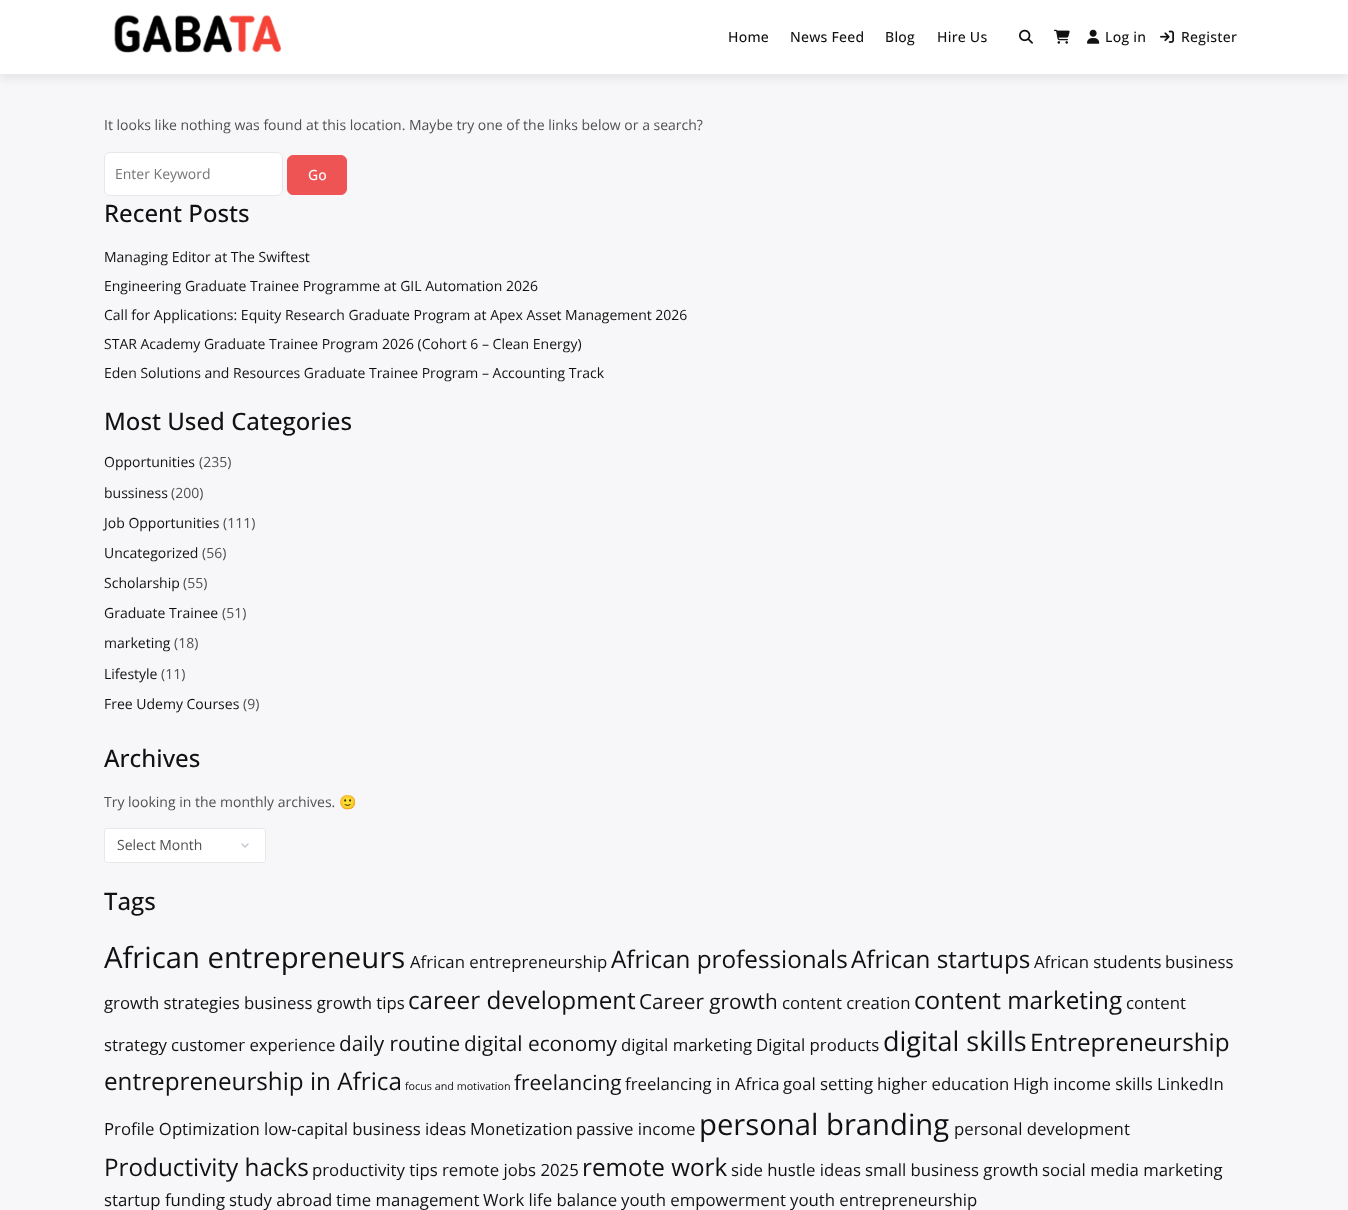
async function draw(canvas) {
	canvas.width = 1348;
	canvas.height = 1210;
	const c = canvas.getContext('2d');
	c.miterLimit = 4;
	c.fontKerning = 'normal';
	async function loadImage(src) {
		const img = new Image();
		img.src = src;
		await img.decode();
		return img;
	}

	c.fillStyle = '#f7f7f9';
	c.fillRect(0, 0, 1348, 1210);
	c.fillStyle = '#84848426';
	c.filter = 'blur(5px)';
	c.beginPath();
	c.rect(0, 5, 1348, 74);
	c.fill();
	c.filter = 'none';
	c.fillStyle = '#fff';
	c.fillRect(0, 0, 1348, 74);
	c.drawImage(await loadImage('img1.png'), 114, 14, 168, 39);
	c.letterSpacing = '0.25px';
	c.font = '500 14px Open Sans';
	c.fillStyle = '#111';
	for (const [text, x, y] of [
		['Home', 728, 42],
		['News Feed', 790, 42],
		['Blog', 885, 42],
		['Hire Us', 937, 42],
	]) {
		c.fillText(text, x, y);
	}
	c.drawImage(await loadImage('img2.png'), 1019, 29, 14, 15);
	c.drawImage(await loadImage('img3.png'), 1054, 29, 16, 15);
	c.drawImage(await loadImage('img4.png'), 1087, 29, 13, 15);
	c.fillText('Log in', 1105, 42);
	c.drawImage(await loadImage('img5.png'), 1160, 30, 14, 13);
	c.fillText('Register', 1181, 42);
	c.letterSpacing = '0px';
	c.font = '14px Open Sans';
	c.fillStyle = '#505050';
	c.fillText('It looks like nothing was found at this location. Maybe try one of the links below or a search?', 104, 130);
	c.fillStyle = '#fff';
	c.beginPath();
	c.roundRect(104.5, 152.5, 178, 43, 5.5);
	c.fill();
	c.strokeStyle = '#e8e8e8';
	c.stroke();
	c.fillStyle = '#757575';
	c.fillText('Enter Keyword', 115, 179);
	c.fillStyle = '#ef5455';
	c.beginPath();
	c.roundRect(287.5, 155.5, 59, 39, 5.5);
	c.fill();
	c.strokeStyle = '#ef5455';
	c.stroke();
	c.font = '500 14px Open Sans';
	c.fillStyle = '#fff';
	c.fillText('Go', 308, 180);
	c.font = '500 24px Open Sans';
	c.fillStyle = '#111';
	c.fillText('Recent Posts', 104, 222);
	c.font = '14px Open Sans';
	for (const [text, x, y] of [
		['Managing Editor at The Swiftest', 104, 262],
		['Engineering Graduate Trainee Programme at GIL Automation 2026', 104, 291],
		['Call for Applications: Equity Research Graduate Program at Apex Asset Management 2026', 104, 320],
		['STAR Academy Graduate Trainee Program 2026 (Cohort 6 – Clean Energy)', 104, 349],
		['Eden Solutions and Resources Graduate Trainee Program – Accounting Track', 104, 378],
	]) {
		c.fillText(text, x, y);
	}
	c.font = '500 24px Open Sans';
	c.fillText('Most Used Categories', 104, 430);
	c.font = '14px Open Sans';
	c.fillText('Opportunities', 104, 467);
	c.fillStyle = '#505050';
	c.fillText('(235)', 199, 467);
	c.fillStyle = '#111';
	c.fillText('bussiness', 104, 498);
	c.fillStyle = '#505050';
	c.fillText('(200)', 171, 498);
	c.fillStyle = '#111';
	c.fillText('Job Opportunities', 104, 528);
	c.fillStyle = '#505050';
	c.fillText('(111)', 223, 528);
	c.fillStyle = '#111';
	c.fillText('Uncategorized', 104, 558);
	c.fillStyle = '#505050';
	c.fillText('(56)', 202, 558);
	c.fillStyle = '#111';
	c.fillText('Scholarship', 104, 588);
	c.fillStyle = '#505050';
	c.fillText('(55)', 183, 588);
	c.fillStyle = '#111';
	c.fillText('Graduate Trainee', 104, 618);
	c.fillStyle = '#505050';
	c.fillText('(51)', 222, 618);
	c.fillStyle = '#111';
	c.fillText('marketing', 104, 648);
	c.fillStyle = '#505050';
	c.fillText('(18)', 174, 648);
	c.fillStyle = '#111';
	c.fillText('Lifestyle', 104, 679);
	c.fillStyle = '#505050';
	c.fillText('(11)', 161, 679);
	c.fillStyle = '#111';
	c.fillText('Free Udemy Courses', 104, 709);
	c.fillStyle = '#505050';
	c.fillText('(9)', 243, 709);
	c.font = '500 24px Open Sans';
	c.fillStyle = '#111';
	c.fillText('Archives', 104, 767);
	c.font = '14px Open Sans';
	c.fillStyle = '#505050';
	c.fillText('Try looking in the monthly archives.', 104, 807);
	c.font = '14px Noto Color Emoji';
	c.fillText('🙂', 339, 807);
	c.fillStyle = '#fff';
	c.beginPath();
	c.roundRect(104, 828, 162, 35, 3);
	c.fill();
	c.beginPath();
	c.moveTo(248, 844);
	c.lineTo(245, 847);
	c.lineTo(242, 844);
	c.strokeStyle = '#c4cad1';
	c.lineWidth = 1.5;
	c.lineCap = 'round';
	c.lineJoin = 'round';
	c.stroke();
	c.beginPath();
	c.roundRect(104.5, 828.5, 161, 34, 2.5);
	c.strokeStyle = '#e8e8e8';
	c.lineWidth = 1;
	c.lineJoin = 'miter';
	c.stroke();
	c.font = '14px Open Sans';
	c.fillStyle = '#505050';
	c.fillText('Select Month', 117, 850);
	c.font = '500 24px Open Sans';
	c.fillStyle = '#111';
	c.fillText('Tags', 104, 910);
	c.font = '29.25px Open Sans';
	c.fillText('African entrepreneurs', 104, 968);
	c.font = '16.75px Open Sans';
	c.fillText('African entrepreneurship', 410, 968);
	c.font = '24.25px Open Sans';
	c.fillText('African professionals', 611, 968);
	c.fillText('African startups', 851, 968);
	c.font = '16.75px Open Sans';
	for (const [text, x, y] of [
		['African students', 1034, 968],
		['business', 1165, 968],
		['growth strategies', 104, 1009],
		['business growth tips', 244, 1009],
	]) {
		c.fillText(text, x, y);
	}
	c.font = '24.25px Open Sans';
	c.fillText('career development', 408, 1009);
	c.font = '20.75px Open Sans';
	c.fillText('Career growth', 639, 1009);
	c.font = '16.75px Open Sans';
	c.fillText('content creation', 782, 1009);
	c.font = '24.25px Open Sans';
	c.fillText('content marketing', 914, 1009);
	c.font = '16.75px Open Sans';
	for (const [text, x, y] of [
		['content', 1126, 1009],
		['strategy', 104, 1051],
		['customer experience', 171, 1051],
	]) {
		c.fillText(text, x, y);
	}
	c.font = '20.75px Open Sans';
	c.fillText('daily routine', 339, 1051);
	c.fillText('digital economy', 464, 1051);
	c.font = '16.75px Open Sans';
	c.fillText('digital marketing', 621, 1051);
	c.fillText('Digital products', 756, 1051);
	c.font = '27px Open Sans';
	c.fillText('digital skills', 883, 1051);
	c.font = '24.25px Open Sans';
	c.fillText('Entrepreneurship', 1030, 1051);
	c.fillText('entrepreneurship in Africa', 104, 1090);
	c.font = '10.75px Open Sans';
	c.fillText('focus and motivation', 405, 1090);
	c.font = '20.75px Open Sans';
	c.fillText('freelancing', 514, 1090);
	c.font = '16.75px Open Sans';
	for (const [text, x, y] of [
		['freelancing in Africa', 625, 1090],
		['goal setting', 783, 1090],
		['higher education', 877, 1090],
		['High income skills', 1013, 1090],
		['LinkedIn', 1157, 1090],
		['Profile Optimization', 104, 1135],
		['low-capital business ideas', 264, 1135],
		['Monetization', 470, 1135],
		['passive income', 576, 1135],
	]) {
		c.fillText(text, x, y);
	}
	c.font = '29.25px Open Sans';
	c.fillText('personal branding', 699, 1135);
	c.font = '16.75px Open Sans';
	c.fillText('personal development', 954, 1135);
	c.font = '24.25px Open Sans';
	c.fillText('Productivity hacks', 104, 1176);
	c.font = '16.75px Open Sans';
	c.fillText('productivity tips', 312, 1176);
	c.fillText('remote jobs 2025', 442, 1176);
	c.font = '24.25px Open Sans';
	c.fillText('remote work', 582, 1176);
	c.font = '16.75px Open Sans';
	for (const [text, x, y] of [
		['side hustle ideas', 731, 1176],
		['small business growth', 865, 1176],
		['social media marketing', 1042, 1176],
		['startup funding', 104, 1206],
		['study abroad', 229, 1206],
		['time management', 336, 1206],
		['Work life balance', 483, 1206],
		['youth empowerment', 621, 1206],
		['youth entrepreneurship', 790, 1206],
	]) {
		c.fillText(text, x, y);
	}
}

draw(document.querySelector('canvas'));
